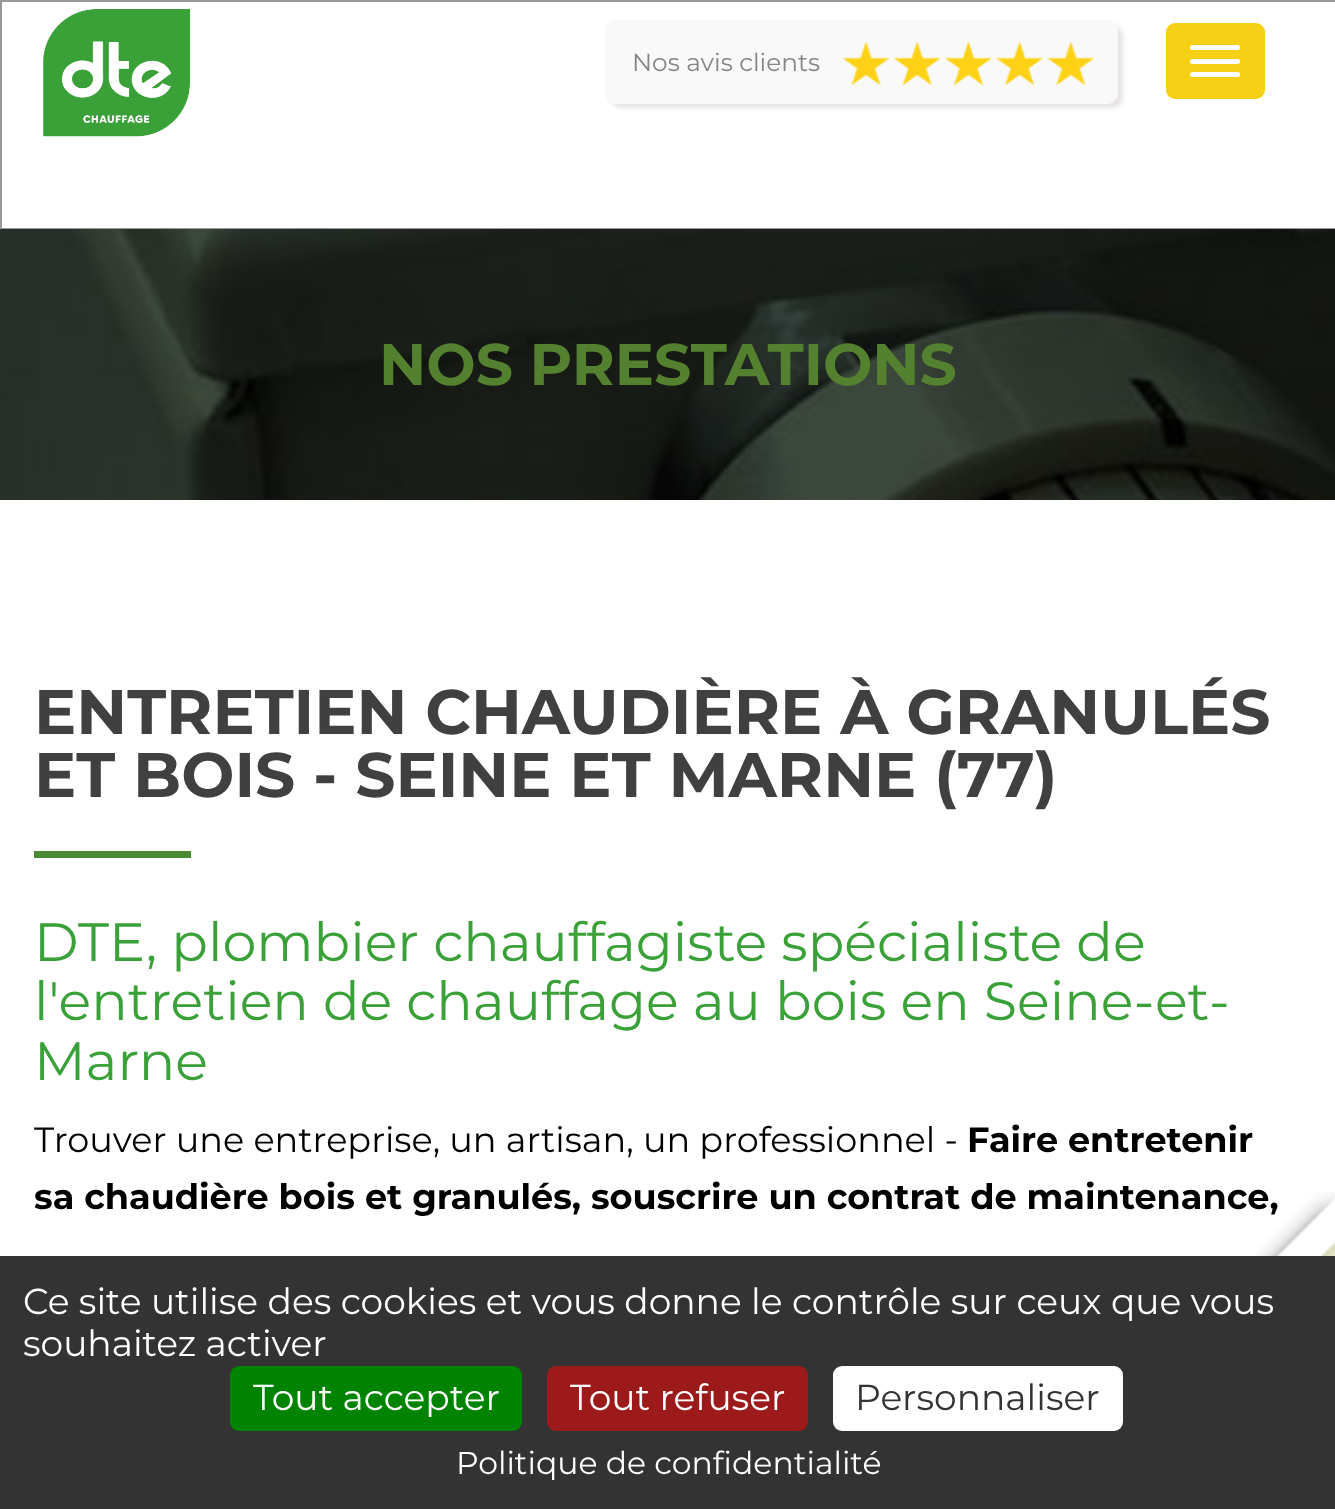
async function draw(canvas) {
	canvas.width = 1335;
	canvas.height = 1509;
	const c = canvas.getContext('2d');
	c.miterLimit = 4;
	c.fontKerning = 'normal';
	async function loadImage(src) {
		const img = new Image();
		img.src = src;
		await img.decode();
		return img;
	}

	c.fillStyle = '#fff';
	c.fillRect(0, 0, 1335, 1509);
	c.strokeStyle = '#999';
	c.lineWidth = 2;
	c.strokeRect(1, 1, 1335, 228);
	c.drawImage(await loadImage('img1.png'), 43, 9, 148, 128);
	c.fillStyle = '#f6d014';
	c.beginPath();
	c.roundRect(1166, 23, 99, 76, 9);
	c.fill();
	c.fillStyle = '#fff';
	c.beginPath();
	c.roundRect(1190, 45, 50, 5, 2.5);
	c.fill();
	c.beginPath();
	c.roundRect(1190, 59, 50, 5, 2.5);
	c.fill();
	c.beginPath();
	c.roundRect(1190, 72, 50, 5, 2.5);
	c.fill();
	c.fillStyle = '#9d88883d';
	c.filter = 'blur(2px)';
	c.beginPath();
	c.roundRect(610, 25, 513, 83, 11);
	c.fill();
	c.filter = 'none';
	c.fillStyle = '#f9f9f9';
	c.beginPath();
	c.roundRect(605, 20, 513, 84, 11);
	c.fill();
	c.font = '24.75px Montserrat';
	c.fillStyle = '#858585';
	c.fillText('Nos avis clients', 632, 71);
	c.drawImage(await loadImage('img2.png'), 842, 41, 252, 45);
	c.drawImage(await loadImage('img3.png'), 0, 229, 1335, 271);
	c.font = 'bold 58.5px Montserrat';
	c.fillStyle = '#54812f';
	c.fillText('NOS PRESTATIONS', 379, 385);
	c.font = 'bold 63px Montserrat';
	c.fillStyle = '#404040';
	c.fillText('ENTRETIEN CHAUDIÈRE À GRANULÉS', 34, 734);
	c.fillText('ET BOIS - SEINE ET MARNE (77)', 34, 797);
	c.fillStyle = '#4a8a33';
	c.fillRect(34, 851, 157, 7);
	c.font = '54px Montserrat';
	c.fillStyle = '#3aa138';
	for (const [text, x, y] of [
		['DTE, plombier chauffagiste spécialiste de', 34, 961],
		['l\'entretien de chauffage au bois en Seine-et-', 34, 1020],
		['Marne', 34, 1080],
	]) {
		c.fillText(text, x, y);
	}
	c.font = '35.1px Montserrat';
	c.fillStyle = '#000';
	c.fillText('Trouver une entreprise, un artisan, un professionnel -', 34, 1152);
	c.font = 'bold 35.1px Montserrat';
	c.fillText('Faire entretenir', 967, 1152);
	c.fillText('sa chaudière bois et granulés, souscrire un contrat de maintenance,', 34, 1209);
	c.drawImage(await loadImage('img4.png'), 1256, 1192, 79, 64);
	c.fillStyle = '#333';
	c.fillRect(0, 1256, 1335, 253);
	c.font = '36px Montserrat';
	c.fillStyle = '#fff';
	c.fillText('Ce site utilise des cookies et vous donne le contrôle sur ceux que vous', 23, 1314);
	c.fillText('souhaitez activer', 23, 1356);
	c.fillStyle = '#008300';
	c.beginPath();
	c.roundRect(230, 1366, 292, 65, 9);
	c.fill();
	c.fillStyle = '#fff';
	c.fillText('Tout accepter', 253, 1410);
	c.fillStyle = '#9c1a1a';
	c.beginPath();
	c.roundRect(547, 1366, 261, 65, 9);
	c.fill();
	c.fillStyle = '#fff';
	c.fillText('Tout refuser', 570, 1410);
	c.beginPath();
	c.roundRect(833, 1366, 290, 65, 9);
	c.fill();
	c.fillStyle = '#333';
	c.fillText('Personnaliser', 855, 1410);
	c.font = '31.5px Montserrat';
	c.fillStyle = '#fff';
	c.fillText('Politique de confidentialité', 456, 1474);
}

draw(document.querySelector('canvas'));
